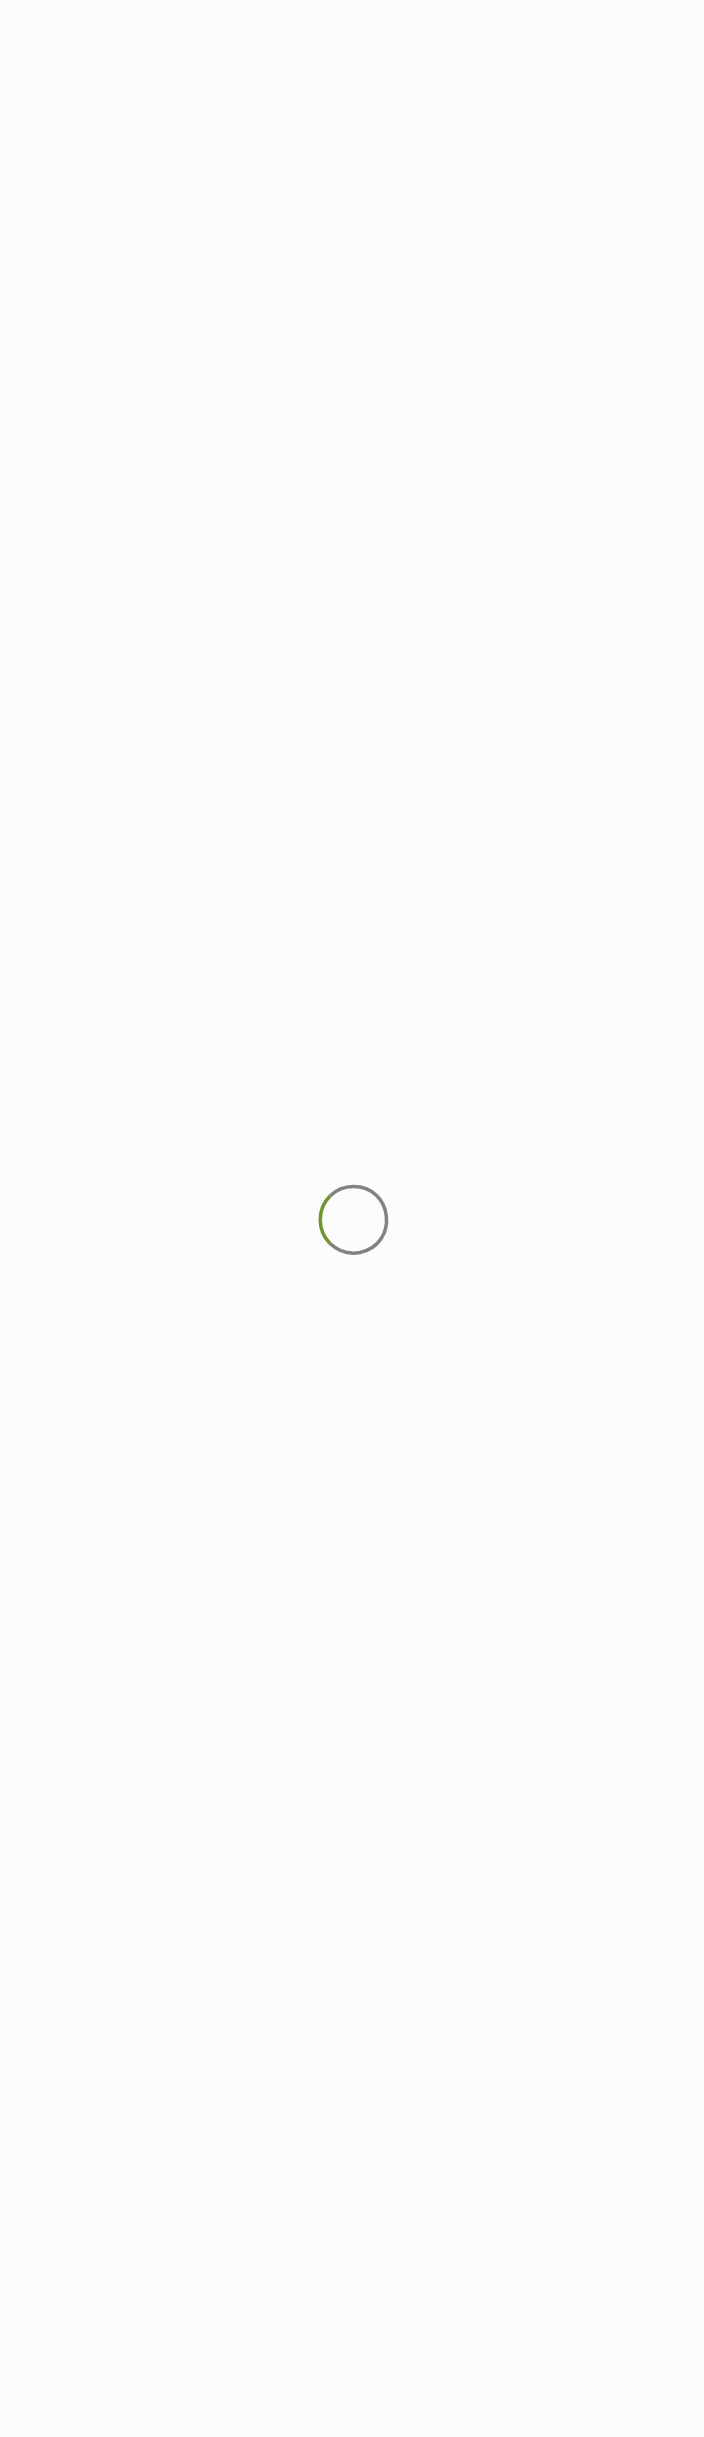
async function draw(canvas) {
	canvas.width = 704;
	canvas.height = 2437;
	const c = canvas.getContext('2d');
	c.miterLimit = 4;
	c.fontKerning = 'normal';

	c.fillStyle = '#fcfcfc';
	c.fillRect(0, 0, 704, 2437);
	c.beginPath();
	c.moveTo(330, 1196);
	c.bezierCurveTo(336, 1190, 344.5, 1186.5, 353.5, 1186.5);
	c.bezierCurveTo(393.5, 1186.5, 399, 1244.5, 360, 1252.5);
	c.bezierCurveTo(349, 1254.5, 338, 1251, 330, 1243.5);
	c.strokeStyle = '#828282';
	c.lineWidth = 3.5;
	c.stroke();
	c.beginPath();
	c.moveTo(330, 1243.5);
	c.bezierCurveTo(317, 1230.5, 317, 1209, 330, 1196);
	c.strokeStyle = '#719430';
	c.stroke();
}

draw(document.querySelector('canvas'));
